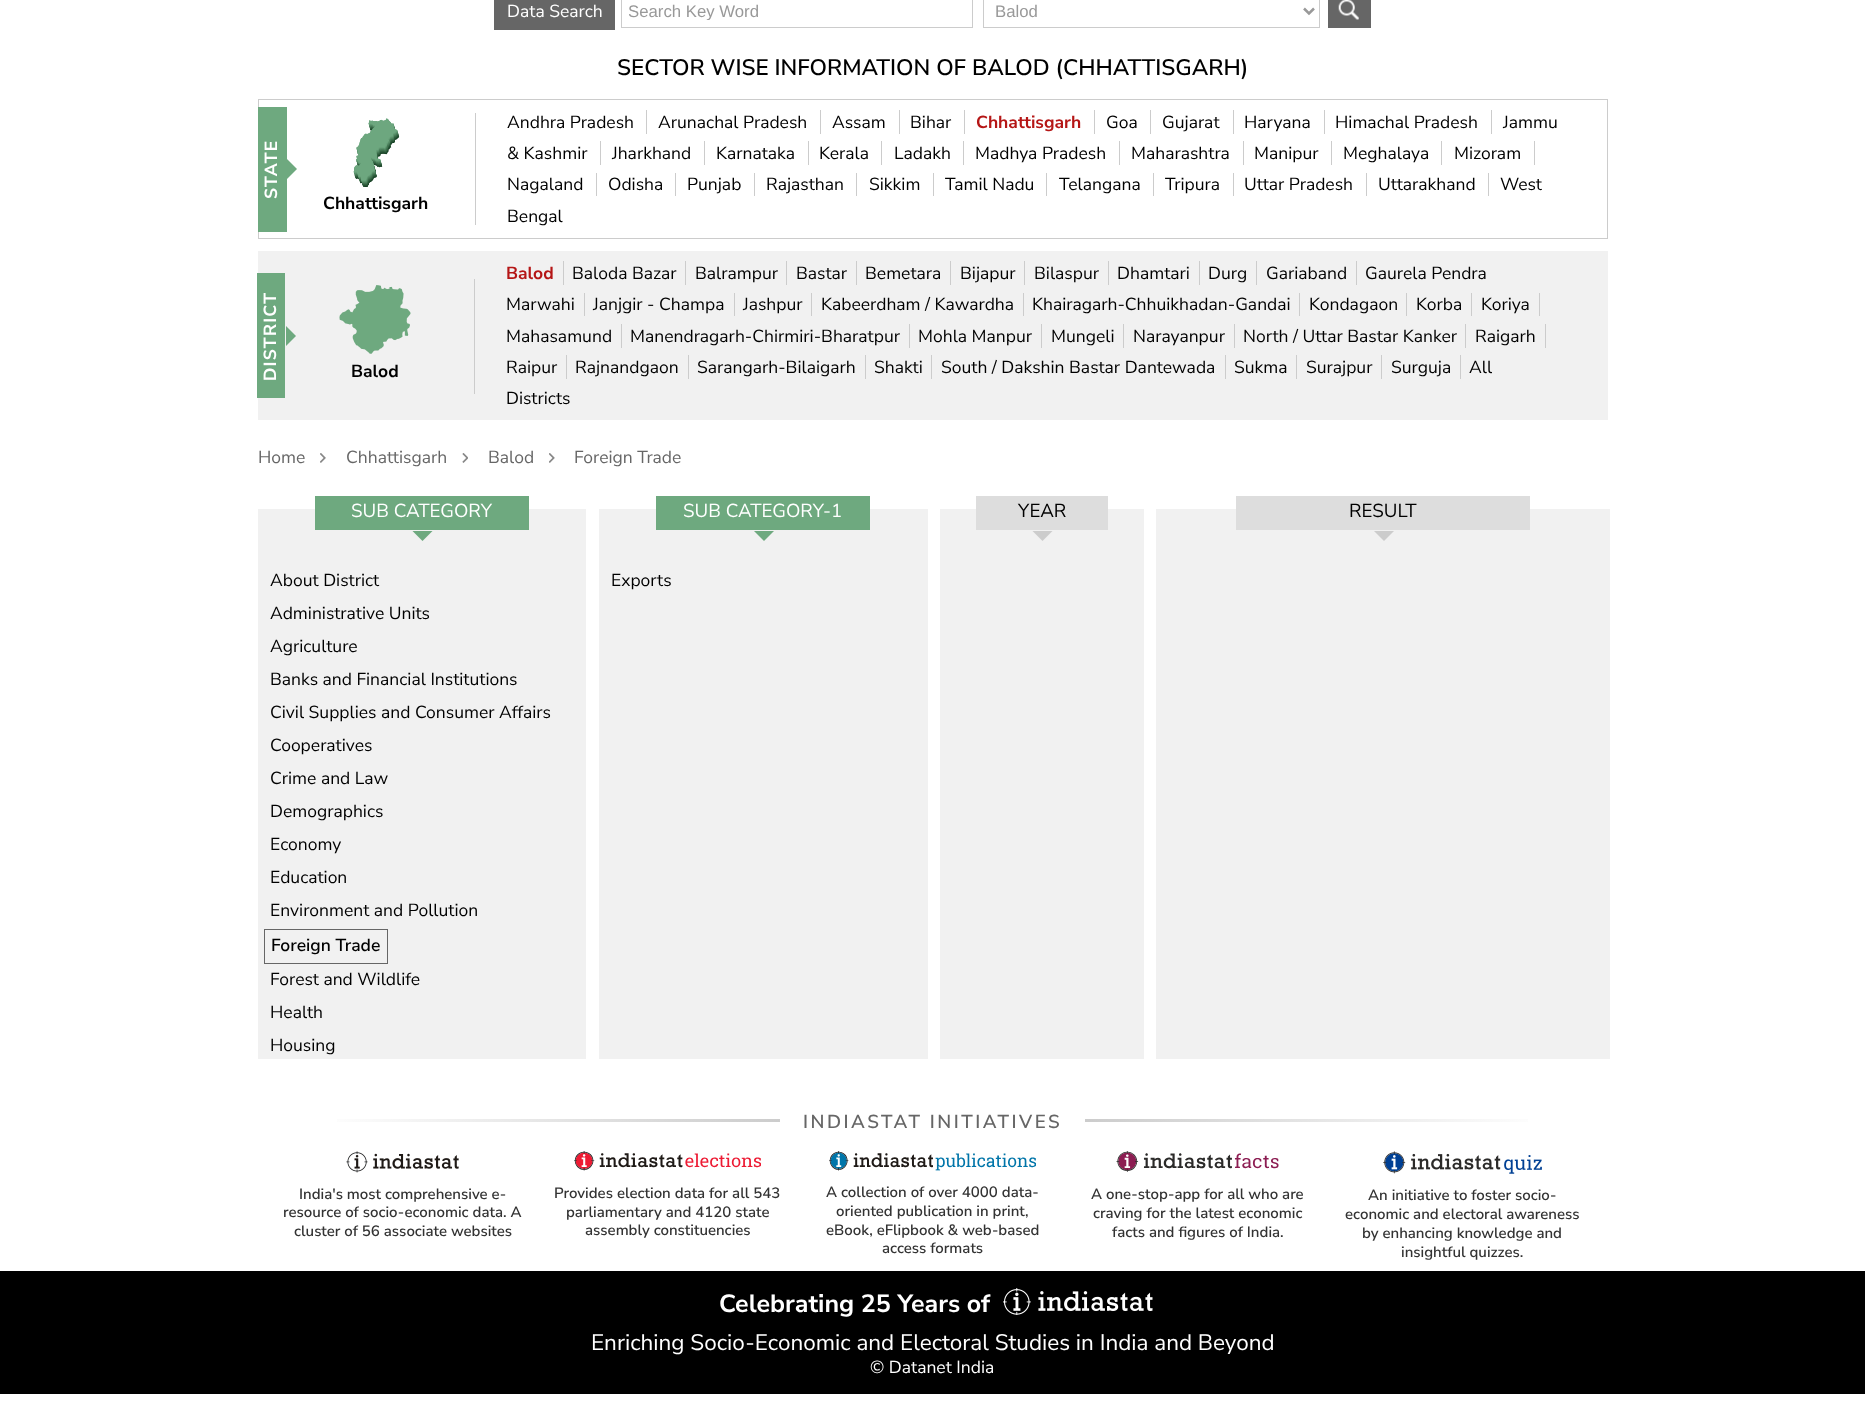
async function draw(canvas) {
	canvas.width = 1865;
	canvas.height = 1406;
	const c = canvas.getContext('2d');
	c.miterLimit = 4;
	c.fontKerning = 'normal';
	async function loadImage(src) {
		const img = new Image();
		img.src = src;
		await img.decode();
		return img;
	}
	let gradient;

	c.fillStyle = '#fff';
	c.fillRect(0, 0, 1865, 1406);
	c.fillStyle = '#666';
	c.fillRect(494, 0, 121, 30);
	c.font = '17.5px Nunito Sans';
	c.fillStyle = '#fff';
	c.fillText('Data Search', 507, 17);
	c.strokeStyle = '#ccc';
	c.strokeRect(621.5, -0.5, 351, 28);
	c.save();
	c.beginPath();
	c.rect(629, 1, 336, 19);
	c.clip();
	c.font = '16.75px Liberation Sans';
	c.fillStyle = '#999';
	c.fillText('Search Key Word', 628, 17);
	c.restore();
	c.strokeRect(983.5, -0.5, 336, 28);
	c.beginPath();
	c.moveTo(1304, 8.5);
	c.lineTo(1309, 13.5);
	c.lineTo(1314, 8.5);
	c.strokeStyle = '#999';
	c.lineWidth = 2.5;
	c.stroke();
	c.font = '16.75px Liberation Sans';
	c.fillStyle = '#999';
	c.fillText('Balod', 995, 17);
	c.fillStyle = '#666';
	c.fillRect(1328, 0, 43, 28);
	c.drawImage(await loadImage('img1.png'), 1338, 0, 21, 20);
	c.font = '600 22.5px Nunito Sans';
	c.fillStyle = '#000';
	c.fillText('SECTOR WISE INFORMATION OF BALOD (CHHATTISGARH)', 617, 75);
	c.strokeStyle = '#ccc';
	c.lineWidth = 1;
	c.strokeRect(258.5, 99.5, 1349, 139);
	c.fillStyle = '#6ea97f';
	c.fillRect(258, 107, 29, 125);
	c.letterSpacing = '1.25px';
	c.font = 'bold 17.5px Nunito Sans';
	c.fillStyle = '#fff';
	c.save();
	c.translate(277, 199);
	c.rotate(-90 * Math.PI / 180);
	c.fillText('STATE', 0, 0);
	c.restore();
	c.fillStyle = '#6ea97f';
	c.beginPath();
	c.moveTo(287, 179);
	c.lineTo(287, 159);
	c.lineTo(297, 169);
	c.closePath();
	c.fill();
	c.letterSpacing = '0px';
	c.font = '17.5px Nunito Sans';
	c.fillStyle = '#000';
	c.fillText('Andhra Pradesh', 507, 128);
	c.fillStyle = '#ccc';
	c.fillRect(646, 110, 1, 24);
	c.fillStyle = '#000';
	c.fillText('Arunachal Pradesh', 658, 128);
	c.fillStyle = '#ccc';
	c.fillRect(820, 110, 1, 24);
	c.fillStyle = '#000';
	c.fillText('Assam', 832, 128);
	c.fillStyle = '#ccc';
	c.fillRect(899, 110, 1, 24);
	c.fillStyle = '#000';
	c.fillText('Bihar', 910, 128);
	c.fillStyle = '#ccc';
	c.fillRect(964, 110, 1, 24);
	c.font = 'bold 17.5px Nunito Sans';
	c.fillStyle = '#b51616';
	c.fillText('Chhattisgarh', 976, 128);
	c.fillStyle = '#ccc';
	c.fillRect(1094, 110, 1, 24);
	c.font = '17.5px Nunito Sans';
	c.fillStyle = '#000';
	c.fillText('Goa', 1106, 128);
	c.fillStyle = '#ccc';
	c.fillRect(1150, 110, 1, 24);
	c.fillStyle = '#000';
	c.fillText('Gujarat', 1162, 128);
	c.fillStyle = '#ccc';
	c.fillRect(1233, 110, 1, 24);
	c.fillStyle = '#000';
	c.fillText('Haryana', 1244, 128);
	c.fillStyle = '#ccc';
	c.fillRect(1324, 110, 1, 24);
	c.fillStyle = '#000';
	c.fillText('Himachal Pradesh', 1335, 128);
	c.fillStyle = '#ccc';
	c.fillRect(1491, 110, 1, 24);
	c.fillStyle = '#000';
	c.fillText('Jammu', 1503, 128);
	c.fillText('& Kashmir', 507, 159);
	c.fillStyle = '#ccc';
	c.fillRect(600, 141, 1, 24);
	c.fillStyle = '#000';
	c.fillText('Jharkhand', 612, 159);
	c.fillStyle = '#ccc';
	c.fillRect(704, 141, 1, 24);
	c.fillStyle = '#000';
	c.fillText('Karnataka', 716, 159);
	c.fillStyle = '#ccc';
	c.fillRect(808, 141, 1, 24);
	c.fillStyle = '#000';
	c.fillText('Kerala', 819, 159);
	c.fillStyle = '#ccc';
	c.fillRect(881, 141, 1, 24);
	c.fillStyle = '#000';
	c.fillText('Ladakh', 894, 159);
	c.fillStyle = '#ccc';
	c.fillRect(963, 141, 1, 24);
	c.fillStyle = '#000';
	c.fillText('Madhya Pradesh', 975, 159);
	c.fillStyle = '#ccc';
	c.fillRect(1119, 141, 1, 24);
	c.fillStyle = '#000';
	c.fillText('Maharashtra', 1131, 159);
	c.fillStyle = '#ccc';
	c.fillRect(1243, 141, 1, 24);
	c.fillStyle = '#000';
	c.fillText('Manipur', 1254, 159);
	c.fillStyle = '#ccc';
	c.fillRect(1331, 141, 1, 24);
	c.fillStyle = '#000';
	c.fillText('Meghalaya', 1343, 159);
	c.fillStyle = '#ccc';
	c.fillRect(1441, 141, 1, 24);
	c.fillStyle = '#000';
	c.fillText('Mizoram', 1454, 159);
	c.fillStyle = '#ccc';
	c.fillRect(1534, 141, 1, 24);
	c.fillStyle = '#000';
	c.fillText('Nagaland', 507, 190);
	c.fillStyle = '#ccc';
	c.fillRect(596, 173, 1, 23);
	c.fillStyle = '#000';
	c.fillText('Odisha', 608, 190);
	c.fillStyle = '#ccc';
	c.fillRect(675, 173, 1, 23);
	c.fillStyle = '#000';
	c.fillText('Punjab', 687, 190);
	c.fillStyle = '#ccc';
	c.fillRect(754, 173, 1, 23);
	c.fillStyle = '#000';
	c.fillText('Rajasthan', 766, 190);
	c.fillStyle = '#ccc';
	c.fillRect(856, 173, 1, 23);
	c.fillStyle = '#000';
	c.fillText('Sikkim', 869, 190);
	c.fillStyle = '#ccc';
	c.fillRect(933, 173, 1, 23);
	c.fillStyle = '#000';
	c.fillText('Tamil Nadu', 945, 190);
	c.fillStyle = '#ccc';
	c.fillRect(1046, 173, 1, 23);
	c.fillStyle = '#000';
	c.fillText('Telangana', 1059, 190);
	c.fillStyle = '#ccc';
	c.fillRect(1153, 173, 1, 23);
	c.fillStyle = '#000';
	c.fillText('Tripura', 1165, 190);
	c.fillStyle = '#ccc';
	c.fillRect(1233, 173, 1, 23);
	c.fillStyle = '#000';
	c.fillText('Uttar Pradesh', 1244, 190);
	c.fillStyle = '#ccc';
	c.fillRect(1366, 173, 1, 23);
	c.fillStyle = '#000';
	c.fillText('Uttarakhand', 1378, 190);
	c.fillStyle = '#ccc';
	c.fillRect(1488, 173, 1, 23);
	c.fillStyle = '#000';
	c.fillText('West', 1500, 190);
	c.fillText('Bengal', 507, 222);
	c.fillStyle = '#ccc';
	c.fillRect(475, 113, 1, 112);
	c.drawImage(await loadImage('img2.png'), 353, 118, 47, 69);
	c.font = 'bold 17.5px Nunito Sans';
	c.fillStyle = '#000';
	c.fillText('Chhattisgarh', 323, 209);
	c.fillStyle = '#f1f1f1';
	c.fillRect(258, 251, 1350, 169);
	c.fillStyle = '#6ea97f';
	c.fillRect(257, 273, 28, 125);
	c.letterSpacing = '1.25px';
	c.fillStyle = '#fff';
	c.save();
	c.translate(276, 381);
	c.rotate(-90 * Math.PI / 180);
	c.fillText('DISTRICT', 0, 0);
	c.restore();
	c.fillStyle = '#6ea97f';
	c.beginPath();
	c.moveTo(286, 346);
	c.lineTo(286, 326);
	c.lineTo(296, 336);
	c.closePath();
	c.fill();
	c.fillStyle = '#ccc';
	c.fillRect(474, 279, 1, 115);
	c.drawImage(await loadImage('img3.png'), 339, 285, 72, 69);
	c.letterSpacing = '0px';
	c.fillStyle = '#000';
	c.fillText('Balod', 351, 377);
	c.fillStyle = '#b51616';
	c.fillText('Balod', 506, 279);
	c.fillStyle = '#ccc';
	c.fillRect(563, 261, 1, 24);
	c.font = '17.5px Nunito Sans';
	c.fillStyle = '#000';
	c.fillText('Baloda Bazar', 572, 279);
	c.fillStyle = '#ccc';
	c.fillRect(685, 261, 1, 24);
	c.fillStyle = '#000';
	c.fillText('Balrampur', 695, 279);
	c.fillStyle = '#ccc';
	c.fillRect(786, 261, 1, 24);
	c.fillStyle = '#000';
	c.fillText('Bastar', 796, 279);
	c.fillStyle = '#ccc';
	c.fillRect(856, 261, 1, 24);
	c.fillStyle = '#000';
	c.fillText('Bemetara', 865, 279);
	c.fillStyle = '#ccc';
	c.fillRect(950, 261, 1, 24);
	c.fillStyle = '#000';
	c.fillText('Bijapur', 960, 279);
	c.fillStyle = '#ccc';
	c.fillRect(1024, 261, 1, 24);
	c.fillStyle = '#000';
	c.fillText('Bilaspur', 1034, 279);
	c.fillStyle = '#ccc';
	c.fillRect(1108, 261, 1, 24);
	c.fillStyle = '#000';
	c.fillText('Dhamtari', 1117, 279);
	c.fillStyle = '#ccc';
	c.fillRect(1199, 261, 1, 24);
	c.fillStyle = '#000';
	c.fillText('Durg', 1208, 279);
	c.fillStyle = '#ccc';
	c.fillRect(1256, 261, 1, 24);
	c.fillStyle = '#000';
	c.fillText('Gariaband', 1266, 279);
	c.fillStyle = '#ccc';
	c.fillRect(1356, 261, 1, 24);
	c.fillStyle = '#000';
	c.fillText('Gaurela Pendra', 1365, 279);
	c.fillText('Marwahi', 506, 310);
	c.fillStyle = '#ccc';
	c.fillRect(584, 293, 1, 23);
	c.fillStyle = '#000';
	c.fillText('Janjgir - Champa', 593, 310);
	c.fillStyle = '#ccc';
	c.fillRect(734, 293, 1, 23);
	c.fillStyle = '#000';
	c.fillText('Jashpur', 743, 310);
	c.fillStyle = '#ccc';
	c.fillRect(811, 293, 1, 23);
	c.fillStyle = '#000';
	c.fillText('Kabeerdham / Kawardha', 821, 310);
	c.fillStyle = '#ccc';
	c.fillRect(1023, 293, 1, 23);
	c.fillStyle = '#000';
	c.fillText('Khairagarh-Chhuikhadan-Gandai', 1032, 310);
	c.fillStyle = '#ccc';
	c.fillRect(1299, 293, 1, 23);
	c.fillStyle = '#000';
	c.fillText('Kondagaon', 1309, 310);
	c.fillStyle = '#ccc';
	c.fillRect(1406, 293, 1, 23);
	c.fillStyle = '#000';
	c.fillText('Korba', 1416, 310);
	c.fillStyle = '#ccc';
	c.fillRect(1471, 293, 1, 23);
	c.fillStyle = '#000';
	c.fillText('Koriya', 1481, 310);
	c.fillStyle = '#ccc';
	c.fillRect(1539, 293, 1, 23);
	c.fillStyle = '#000';
	c.fillText('Mahasamund', 506, 342);
	c.fillStyle = '#ccc';
	c.fillRect(621, 324, 1, 24);
	c.fillStyle = '#000';
	c.fillText('Manendragarh-Chirmiri-Bharatpur', 630, 342);
	c.fillStyle = '#ccc';
	c.fillRect(909, 324, 1, 24);
	c.fillStyle = '#000';
	c.fillText('Mohla Manpur', 918, 342);
	c.fillStyle = '#ccc';
	c.fillRect(1041, 324, 1, 24);
	c.fillStyle = '#000';
	c.fillText('Mungeli', 1051, 342);
	c.fillStyle = '#ccc';
	c.fillRect(1123, 324, 1, 24);
	c.fillStyle = '#000';
	c.fillText('Narayanpur', 1133, 342);
	c.fillStyle = '#ccc';
	c.fillRect(1234, 324, 1, 24);
	c.fillStyle = '#000';
	c.fillText('North / Uttar Bastar Kanker', 1243, 342);
	c.fillStyle = '#ccc';
	c.fillRect(1465, 324, 1, 24);
	c.fillStyle = '#000';
	c.fillText('Raigarh', 1475, 342);
	c.fillStyle = '#ccc';
	c.fillRect(1545, 324, 1, 24);
	c.fillStyle = '#000';
	c.fillText('Raipur', 506, 373);
	c.fillStyle = '#ccc';
	c.fillRect(566, 355, 1, 24);
	c.fillStyle = '#000';
	c.fillText('Rajnandgaon', 575, 373);
	c.fillStyle = '#ccc';
	c.fillRect(688, 355, 1, 24);
	c.fillStyle = '#000';
	c.fillText('Sarangarh-Bilaigarh', 697, 373);
	c.fillStyle = '#ccc';
	c.fillRect(865, 355, 1, 24);
	c.fillStyle = '#000';
	c.fillText('Shakti', 874, 373);
	c.fillStyle = '#ccc';
	c.fillRect(931, 355, 1, 24);
	c.fillStyle = '#000';
	c.fillText('South / Dakshin Bastar Dantewada', 941, 373);
	c.fillStyle = '#ccc';
	c.fillRect(1225, 355, 1, 24);
	c.fillStyle = '#000';
	c.fillText('Sukma', 1234, 373);
	c.fillStyle = '#ccc';
	c.fillRect(1296, 355, 1, 24);
	c.fillStyle = '#000';
	c.fillText('Surajpur', 1306, 373);
	c.fillStyle = '#ccc';
	c.fillRect(1381, 355, 1, 24);
	c.fillStyle = '#000';
	c.fillText('Surguja', 1391, 373);
	c.fillStyle = '#ccc';
	c.fillRect(1460, 355, 1, 24);
	c.fillStyle = '#000';
	c.fillText('All', 1469, 373);
	c.fillText('Districts', 506, 404);
	c.fillStyle = '#666';
	c.fillText('Home', 258, 463);
	c.drawImage(await loadImage('img4.png'), 320, 453, 6, 10);
	c.fillText('Chhattisgarh', 346, 463);
	c.drawImage(await loadImage('img5.png'), 462, 453, 6, 10);
	c.fillText('Balod', 488, 463);
	c.drawImage(await loadImage('img6.png'), 549, 453, 6, 10);
	c.fillText('Foreign Trade', 574, 463);
	c.fillStyle = '#f1f1f1';
	c.fillRect(258, 509, 328, 550);
	c.fillStyle = '#6ea97f';
	c.fillRect(315, 496, 214, 34);
	c.font = '18.75px Nunito Sans';
	c.fillStyle = '#fff';
	c.fillText('SUB CATEGORY', 351, 517);
	c.fillStyle = '#6ea97f';
	c.beginPath();
	c.moveTo(412.5, 531);
	c.lineTo(432.5, 531);
	c.lineTo(422.5, 541);
	c.closePath();
	c.fill();
	c.font = '17.5px Nunito Sans';
	c.fillStyle = '#000';
	for (const [text, x, y] of [
		['About District', 270, 586],
		['Administrative Units', 270, 619],
		['Agriculture', 270, 652],
		['Banks and Financial Institutions', 270, 685],
		['Civil Supplies and Consumer Affairs', 270, 718],
		['Cooperatives', 270, 751],
		['Crime and Law', 270, 784],
		['Demographics', 270, 817],
		['Economy', 270, 850],
		['Education', 270, 883],
		['Environment and Pollution', 270, 916],
	]) {
		c.fillText(text, x, y);
	}
	c.strokeStyle = '#666';
	c.strokeRect(264.5, 929.5, 123, 34);
	c.font = '600 17.5px Nunito Sans';
	c.fillText('Foreign Trade', 271, 951);
	c.font = '17.5px Nunito Sans';
	for (const [text, x, y] of [
		['Forest and Wildlife', 270, 985],
		['Health', 270, 1018],
		['Housing', 270, 1051],
	]) {
		c.fillText(text, x, y);
	}
	c.fillStyle = '#f1f1f1';
	c.fillRect(599, 509, 329, 550);
	c.fillStyle = '#6ea97f';
	c.fillRect(656, 496, 214, 34);
	c.font = '18.75px Nunito Sans';
	c.fillStyle = '#fff';
	c.fillText('SUB CATEGORY-1', 683, 517);
	c.fillStyle = '#6ea97f';
	c.beginPath();
	c.moveTo(754, 531);
	c.lineTo(774, 531);
	c.lineTo(764, 541);
	c.closePath();
	c.fill();
	c.font = '17.5px Nunito Sans';
	c.fillStyle = '#000';
	c.fillText('Exports', 611, 586);
	c.fillStyle = '#f1f1f1';
	c.fillRect(940, 509, 204, 550);
	c.fillStyle = '#ddd';
	c.fillRect(976, 496, 132, 34);
	c.font = '18.75px Nunito Sans';
	c.fillStyle = '#000';
	c.fillText('YEAR', 1018, 517);
	c.fillStyle = '#ccc';
	c.beginPath();
	c.moveTo(1032.5, 531);
	c.lineTo(1052.5, 531);
	c.lineTo(1042.5, 541);
	c.closePath();
	c.fill();
	c.fillStyle = '#f1f1f1';
	c.fillRect(1156, 509, 454, 550);
	c.fillStyle = '#ddd';
	c.fillRect(1236, 496, 294, 34);
	c.fillStyle = '#000';
	c.fillText('RESULT', 1349, 517);
	c.fillStyle = '#ccc';
	c.beginPath();
	c.moveTo(1374, 531);
	c.lineTo(1394, 531);
	c.lineTo(1384, 541);
	c.closePath();
	c.fill();
	gradient = c.createLinearGradient(314, 1120, 780, 1120);
	gradient.addColorStop(0, '#fff');
	gradient.addColorStop(1, '#ccc');
	c.fillStyle = gradient;
	c.fillRect(337, 1119, 443, 3);
	c.letterSpacing = '2.5px';
	c.font = '600 18.75px Nunito Sans';
	c.fillStyle = '#666';
	c.fillText('INDIASTAT INITIATIVES', 803, 1128);
	gradient = c.createLinearGradient(1085, 1120, 1551, 1120);
	gradient.addColorStop(0, '#ccc');
	gradient.addColorStop(1, '#fff');
	c.fillStyle = gradient;
	c.fillRect(1085, 1119, 443, 3);
	c.drawImage(await loadImage('img7.png'), 346, 1151, 113, 22);
	c.letterSpacing = '0px';
	c.font = '600 15px Nunito Sans';
	c.fillStyle = '#333';
	for (const [text, x, y] of [
		['India\'s most comprehensive e-', 299, 1199],
		['resource of socio-economic data. A', 283, 1217],
		['cluster of 56 associate websites', 294, 1236],
	]) {
		c.fillText(text, x, y);
	}
	c.drawImage(await loadImage('img8.png'), 574, 1151, 187, 20);
	for (const [text, x, y] of [
		['Provides election data for all 543', 554, 1198],
		['parliamentary and 4120 state', 566, 1217],
		['assembly constituencies', 585, 1235],
	]) {
		c.fillText(text, x, y);
	}
	c.drawImage(await loadImage('img9.png'), 829, 1151, 207, 20);
	for (const [text, x, y] of [
		['A collection of over 4000 data-', 826, 1197],
		['oriented publication in print,', 836, 1216],
		['eBook, eFlipbook & web-based', 826, 1235],
		['access formats', 882, 1253],
	]) {
		c.fillText(text, x, y);
	}
	c.drawImage(await loadImage('img10.png'), 1116, 1151, 163, 21);
	for (const [text, x, y] of [
		['A one-stop-app for all who are', 1091, 1199],
		['craving for the latest economic', 1093, 1218],
		['facts and figures of India.', 1112, 1237],
	]) {
		c.fillText(text, x, y);
	}
	c.drawImage(await loadImage('img11.png'), 1383, 1151, 159, 23);
	for (const [text, x, y] of [
		['An initiative to foster socio-', 1368, 1200],
		['economic and electoral awareness', 1345, 1219],
		['by enhancing knowledge and', 1362, 1238],
		['insightful quizzes.', 1401, 1257],
	]) {
		c.fillText(text, x, y);
	}
	c.fillStyle = '#000';
	c.fillRect(0, 1271, 1865, 123);
	c.font = 'bold 25px Nunito Sans';
	c.fillStyle = '#fff';
	c.fillText('Celebrating 25 Years of', 719, 1312);
	c.drawImage(await loadImage('img12.png'), 1003, 1288, 150, 27);
	c.font = '22.5px Nunito Sans';
	c.fillText('Enriching Socio-Economic and Electoral Studies in India and Beyond', 591, 1350);
	c.font = '17.5px Nunito Sans';
	c.fillText('© Datanet India', 870, 1373);
}

draw(document.querySelector('canvas'));
